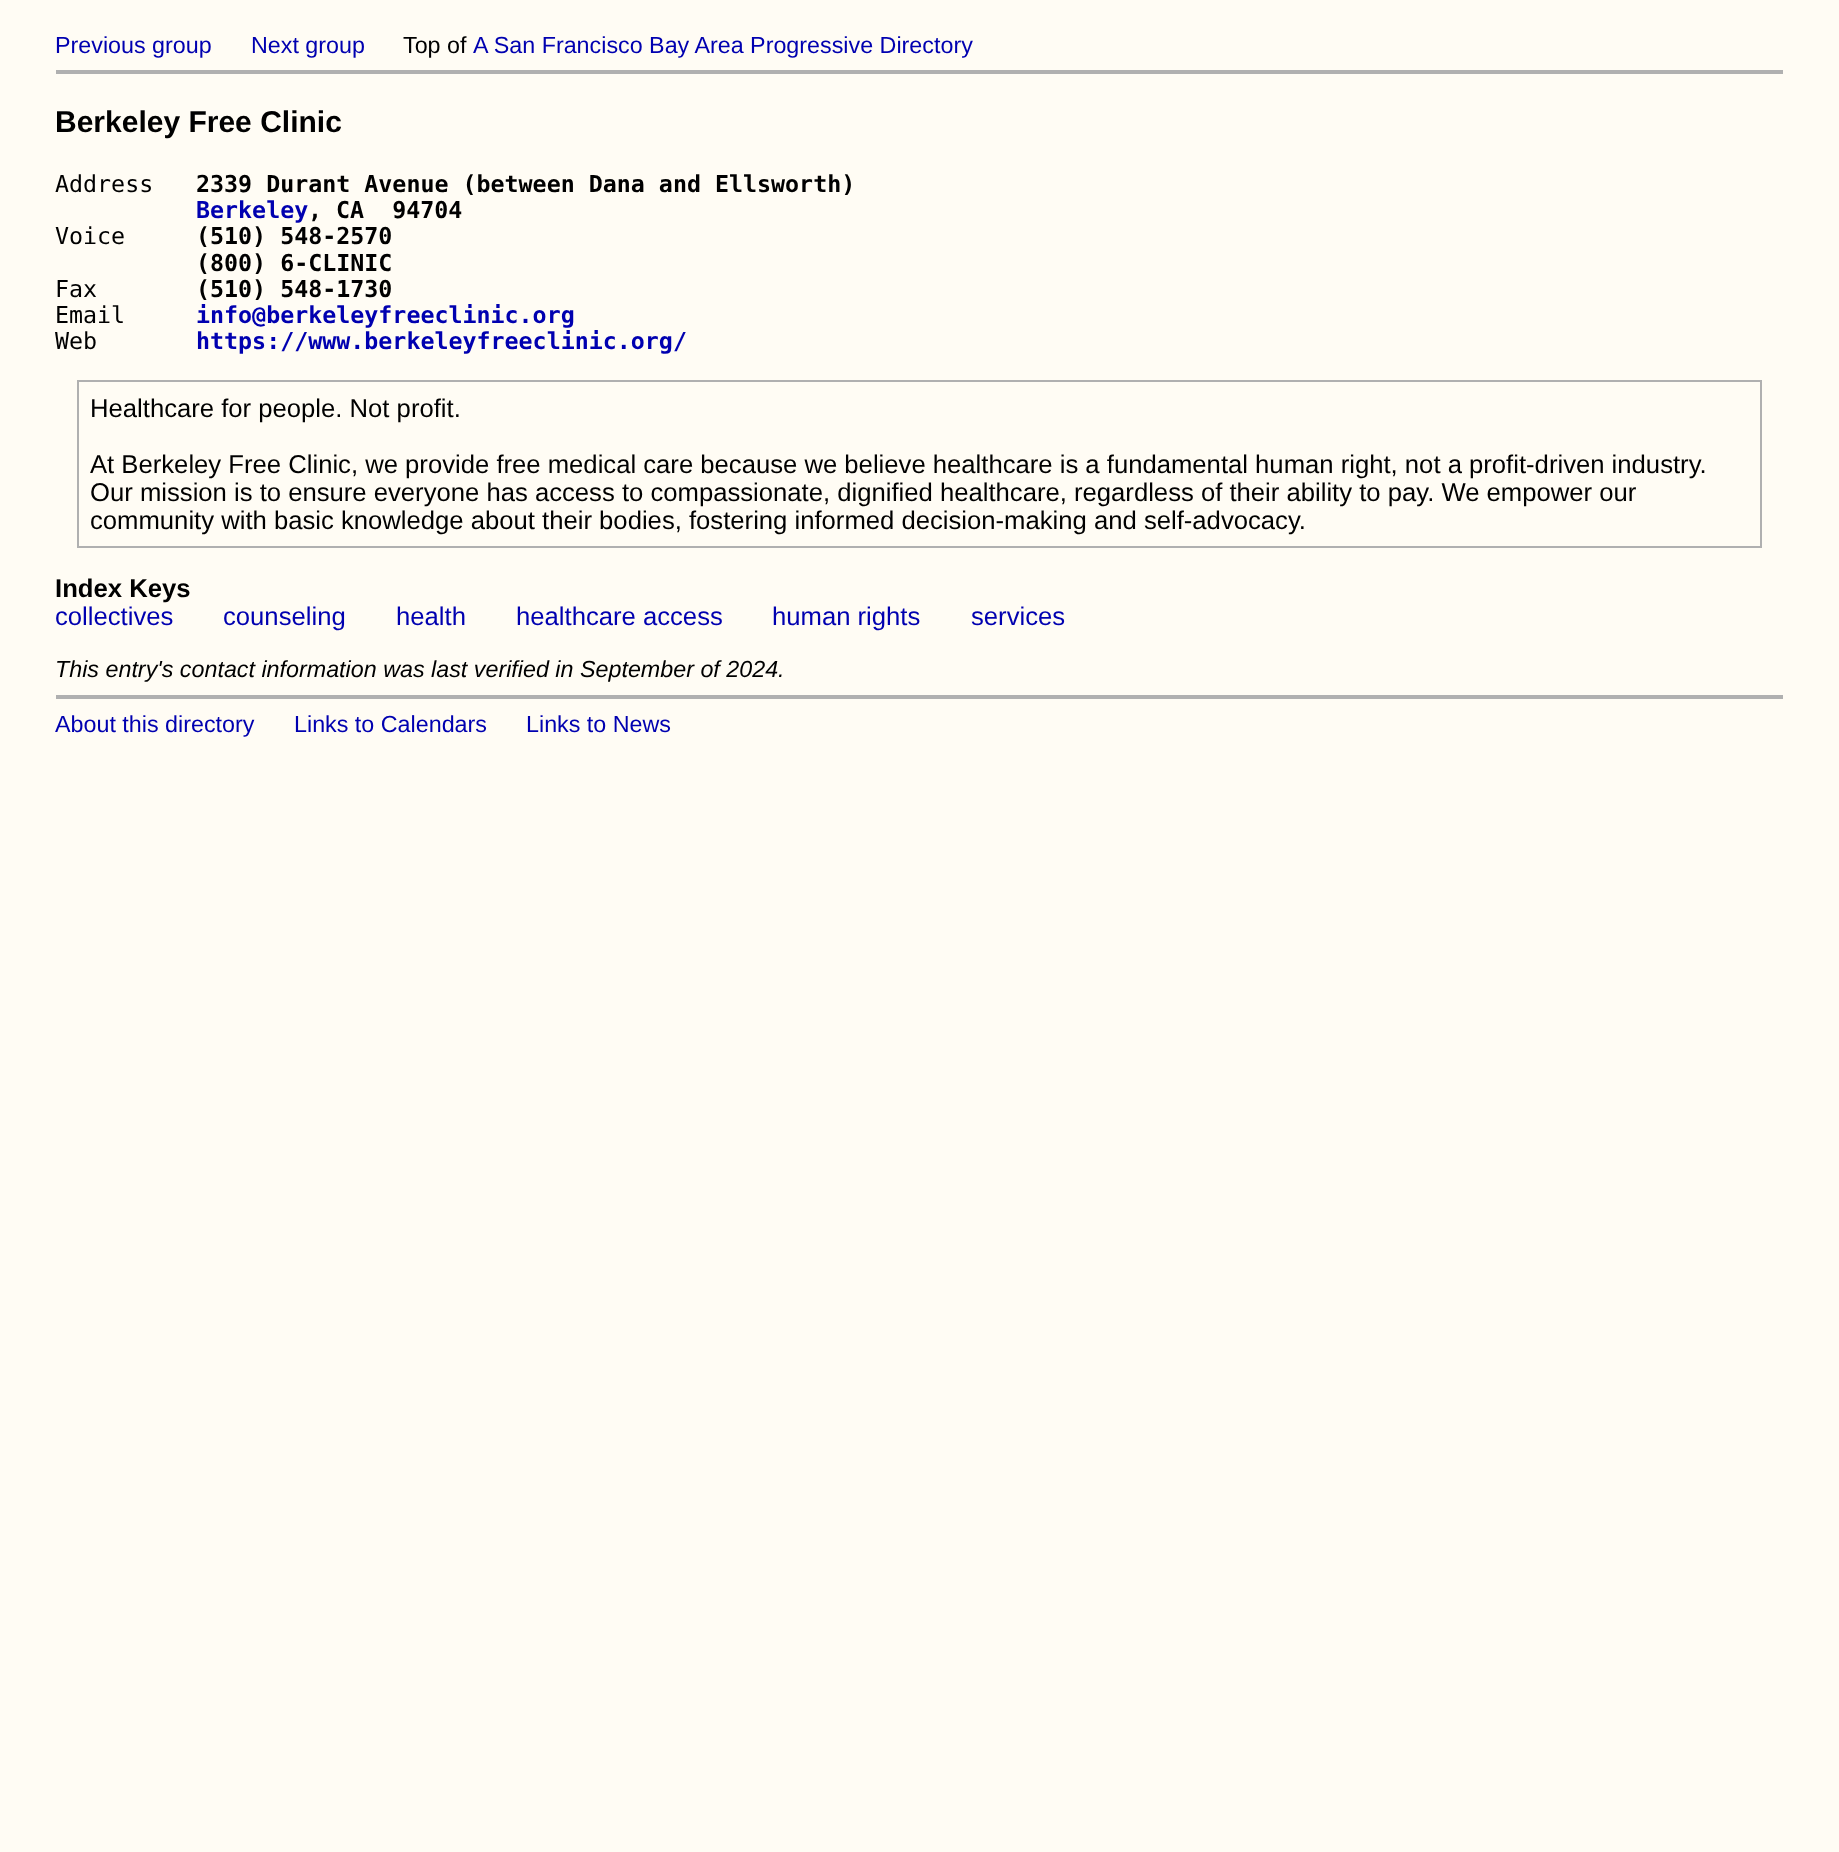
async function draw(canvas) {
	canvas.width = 1839;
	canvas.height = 1852;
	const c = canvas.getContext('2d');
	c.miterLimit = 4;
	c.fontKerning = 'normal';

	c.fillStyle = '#fffcf4';
	c.fillRect(0, 0, 1839, 1852);
	c.font = '23.3px Liberation Sans';
	c.fillStyle = '#0000b0';
	c.fillText('Previous group', 55, 53);
	c.fillText('Next group', 251, 53);
	c.fillStyle = '#000';
	c.fillText('Top of', 403, 53);
	c.fillStyle = '#0000b0';
	c.fillText('A San Francisco Bay Area Progressive Directory', 473, 53);
	c.fillStyle = '#b0b0b0';
	c.fillRect(56, 70, 1727, 4);
	c.font = 'bold 30px Liberation Sans';
	c.fillStyle = '#000';
	c.fillText('Berkeley Free Clinic', 55, 132);
	c.font = '23.3px DejaVu Sans Mono';
	c.fillText('Address', 55, 192);
	c.font = 'bold 23.3px DejaVu Sans Mono';
	c.fillText('2339 Durant Avenue (between Dana and Ellsworth)', 196, 192);
	c.fillStyle = '#0000b0';
	c.fillText('Berkeley', 196, 218);
	c.fillStyle = '#000';
	c.fillText(', CA  94704', 308, 218);
	c.font = '23.3px DejaVu Sans Mono';
	c.fillText('Voice', 55, 244);
	c.font = 'bold 23.3px DejaVu Sans Mono';
	c.fillText('(510) 548-2570', 196, 244);
	c.fillText('(800) 6-CLINIC', 196, 271);
	c.font = '23.3px DejaVu Sans Mono';
	c.fillText('Fax', 55, 297);
	c.font = 'bold 23.3px DejaVu Sans Mono';
	c.fillText('(510) 548-1730', 196, 297);
	c.font = '23.3px DejaVu Sans Mono';
	c.fillText('Email', 55, 323);
	c.font = 'bold 23.3px DejaVu Sans Mono';
	c.fillStyle = '#0000b0';
	c.fillText('info@berkeleyfreeclinic.org', 196, 323);
	c.font = '23.3px DejaVu Sans Mono';
	c.fillStyle = '#000';
	c.fillText('Web', 55, 349);
	c.font = 'bold 23.3px DejaVu Sans Mono';
	c.fillStyle = '#0000b0';
	c.fillText('https://www.berkeleyfreeclinic.org/', 196, 349);
	c.strokeStyle = '#b0b0b0';
	c.lineWidth = 2;
	c.strokeRect(78, 381, 1683, 166);
	c.font = '25.67px Liberation Sans';
	c.fillStyle = '#000';
	for (const [text, x, y] of [
		['Healthcare for people. Not profit.', 90, 417],
		['At Berkeley Free Clinic, we provide free medical care because we believe healthcare is a fundamental human right, not a profit-driven industry.', 90, 473],
		['Our mission is to ensure everyone has access to compassionate, dignified healthcare, regardless of their ability to pay. We empower our', 90, 501],
		['community with basic knowledge about their bodies, fostering informed decision-making and self-advocacy.', 90, 529],
	]) {
		c.fillText(text, x, y);
	}
	c.font = 'bold 25.67px Liberation Sans';
	c.fillText('Index Keys', 55, 597);
	c.font = '25.67px Liberation Sans';
	c.fillStyle = '#0000b0';
	for (const [text, x, y] of [
		['collectives', 55, 625],
		['counseling', 223, 625],
		['health', 396, 625],
		['healthcare access', 516, 625],
		['human rights', 772, 625],
		['services', 971, 625],
	]) {
		c.fillText(text, x, y);
	}
	c.font = 'italic 23.3px Liberation Sans';
	c.fillStyle = '#000';
	c.fillText('This entry\'s contact information was last verified in September of 2024.', 55, 677);
	c.fillStyle = '#b0b0b0';
	c.fillRect(56, 695, 1727, 4);
	c.font = '23.3px Liberation Sans';
	c.fillStyle = '#0000b0';
	for (const [text, x, y] of [
		['About this directory', 55, 732],
		['Links to Calendars', 294, 732],
		['Links to News', 526, 732],
	]) {
		c.fillText(text, x, y);
	}
}

draw(document.querySelector('canvas'));
